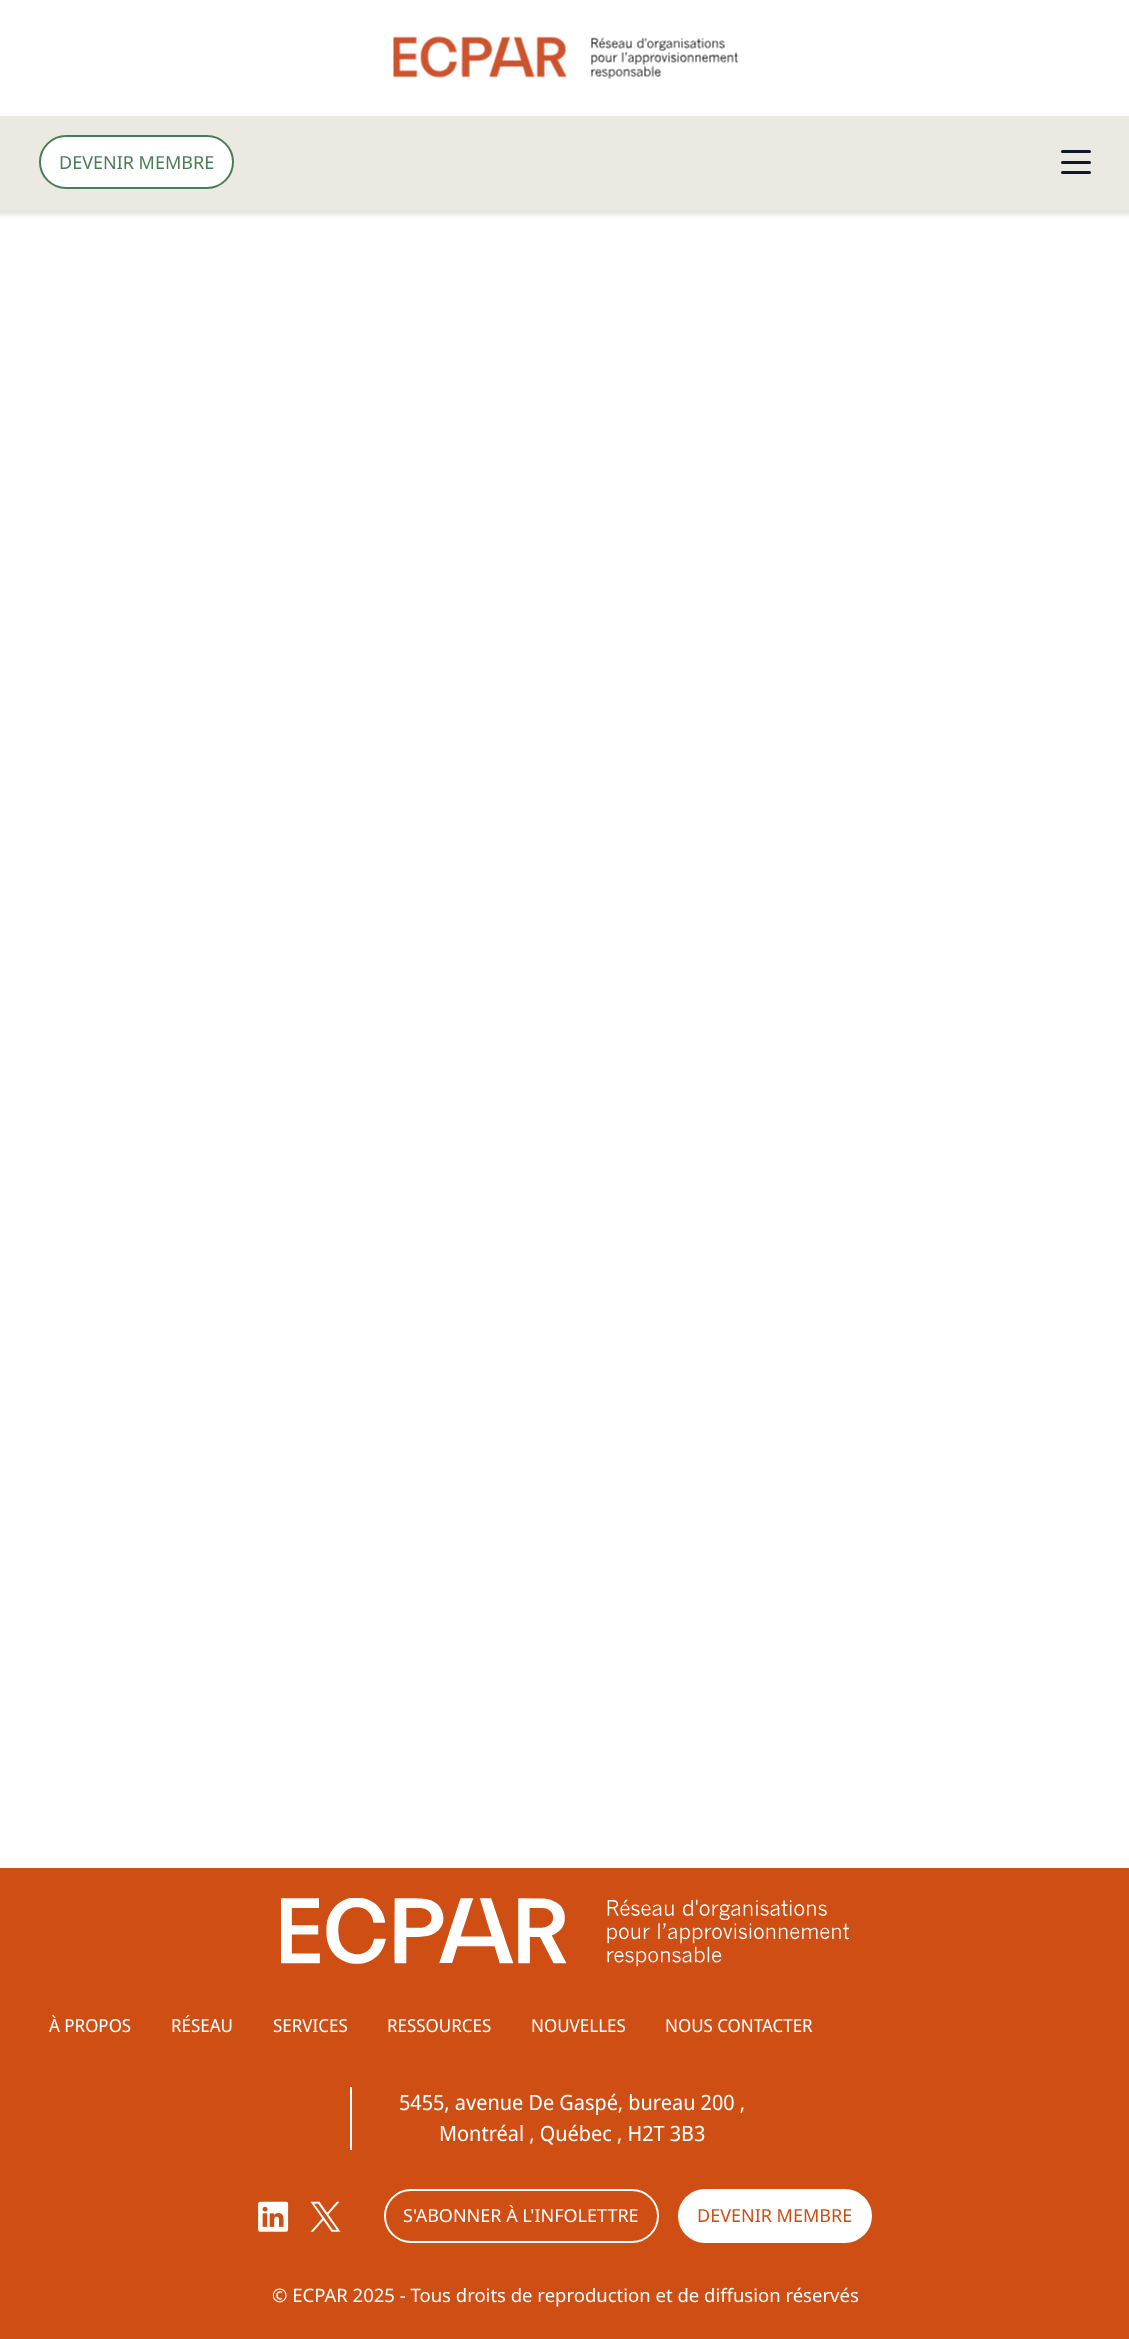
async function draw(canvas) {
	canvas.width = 1129;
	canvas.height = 2339;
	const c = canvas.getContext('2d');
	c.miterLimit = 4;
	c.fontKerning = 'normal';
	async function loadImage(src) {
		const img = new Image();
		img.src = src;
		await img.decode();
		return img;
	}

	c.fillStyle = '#fff';
	c.fillRect(0, 0, 1129, 2339);
	c.fillStyle = '#0000001a';
	c.filter = 'blur(2px)';
	c.beginPath();
	c.rect(-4, -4, 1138, 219);
	c.fill();
	c.filter = 'none';
	c.fillStyle = '#fff';
	c.fillRect(0, 0, 1129, 116);
	c.drawImage(await loadImage('img1.png'), 393, 36, 346, 43);
	c.fillStyle = '#eae9e2';
	c.fillRect(0, 116, 1129, 94);
	c.fillStyle = '#fff';
	c.beginPath();
	c.roundRect(40, 136, 193, 52, 26);
	c.fill();
	c.strokeStyle = '#477e53';
	c.lineWidth = 2;
	c.stroke();
	c.font = '18px Noto Sans';
	c.fillStyle = '#477e53';
	c.fillText('DEVENIR MEMBRE', 59, 169);
	c.fillStyle = '#0f172a';
	c.beginPath();
	c.roundRect(1061, 161, 30, 3, 1.5);
	c.fill();
	c.beginPath();
	c.roundRect(1061, 150, 30, 3, 1.5);
	c.fill();
	c.beginPath();
	c.roundRect(1061, 171, 30, 3, 1.5);
	c.fill();
	c.fillStyle = '#ce4e13';
	c.fillRect(0, 1868, 1129, 471);
	c.drawImage(await loadImage('img2.png'), 281, 1898, 568, 69);
	c.font = '18px Noto Sans Display';
	c.fillStyle = '#fff';
	for (const [text, x, y] of [
		['À PROPOS', 49, 2032],
		['RÉSEAU', 171, 2032],
		['SERVICES', 273, 2032],
		['RESSOURCES', 387, 2032],
		['NOUVELLES', 531, 2032],
		['NOUS CONTACTER', 665, 2032],
	]) {
		c.fillText(text, x, y);
	}
	c.fillRect(350, 2087, 2, 63);
	c.font = '21.1px Noto Sans Display';
	c.fillText('5455, avenue De Gaspé, bureau 200 ,', 399, 2110);
	c.fillText('Montréal , Québec , H2T 3B3', 439, 2141);
	c.drawImage(await loadImage('img3.png'), 258, 2201, 31, 31);
	c.drawImage(await loadImage('img4.png'), 310, 2201, 31, 31);
	c.beginPath();
	c.roundRect(385, 2190, 273, 52, 26);
	c.strokeStyle = '#fff';
	c.stroke();
	c.font = '18px Noto Sans';
	c.fillText('S\'ABONNER À L\'INFOLETTRE', 403, 2222);
	c.beginPath();
	c.roundRect(679, 2190, 192, 52, 26);
	c.fill();
	c.stroke();
	c.fillStyle = '#ce4e13';
	c.fillText('DEVENIR MEMBRE', 697, 2222);
	c.font = '18.5px Noto Sans';
	c.fillStyle = '#fff';
	c.fillText('© ECPAR 2025 - Tous droits de reproduction et de diffusion réservés', 272, 2302);
}

draw(document.querySelector('canvas'));
